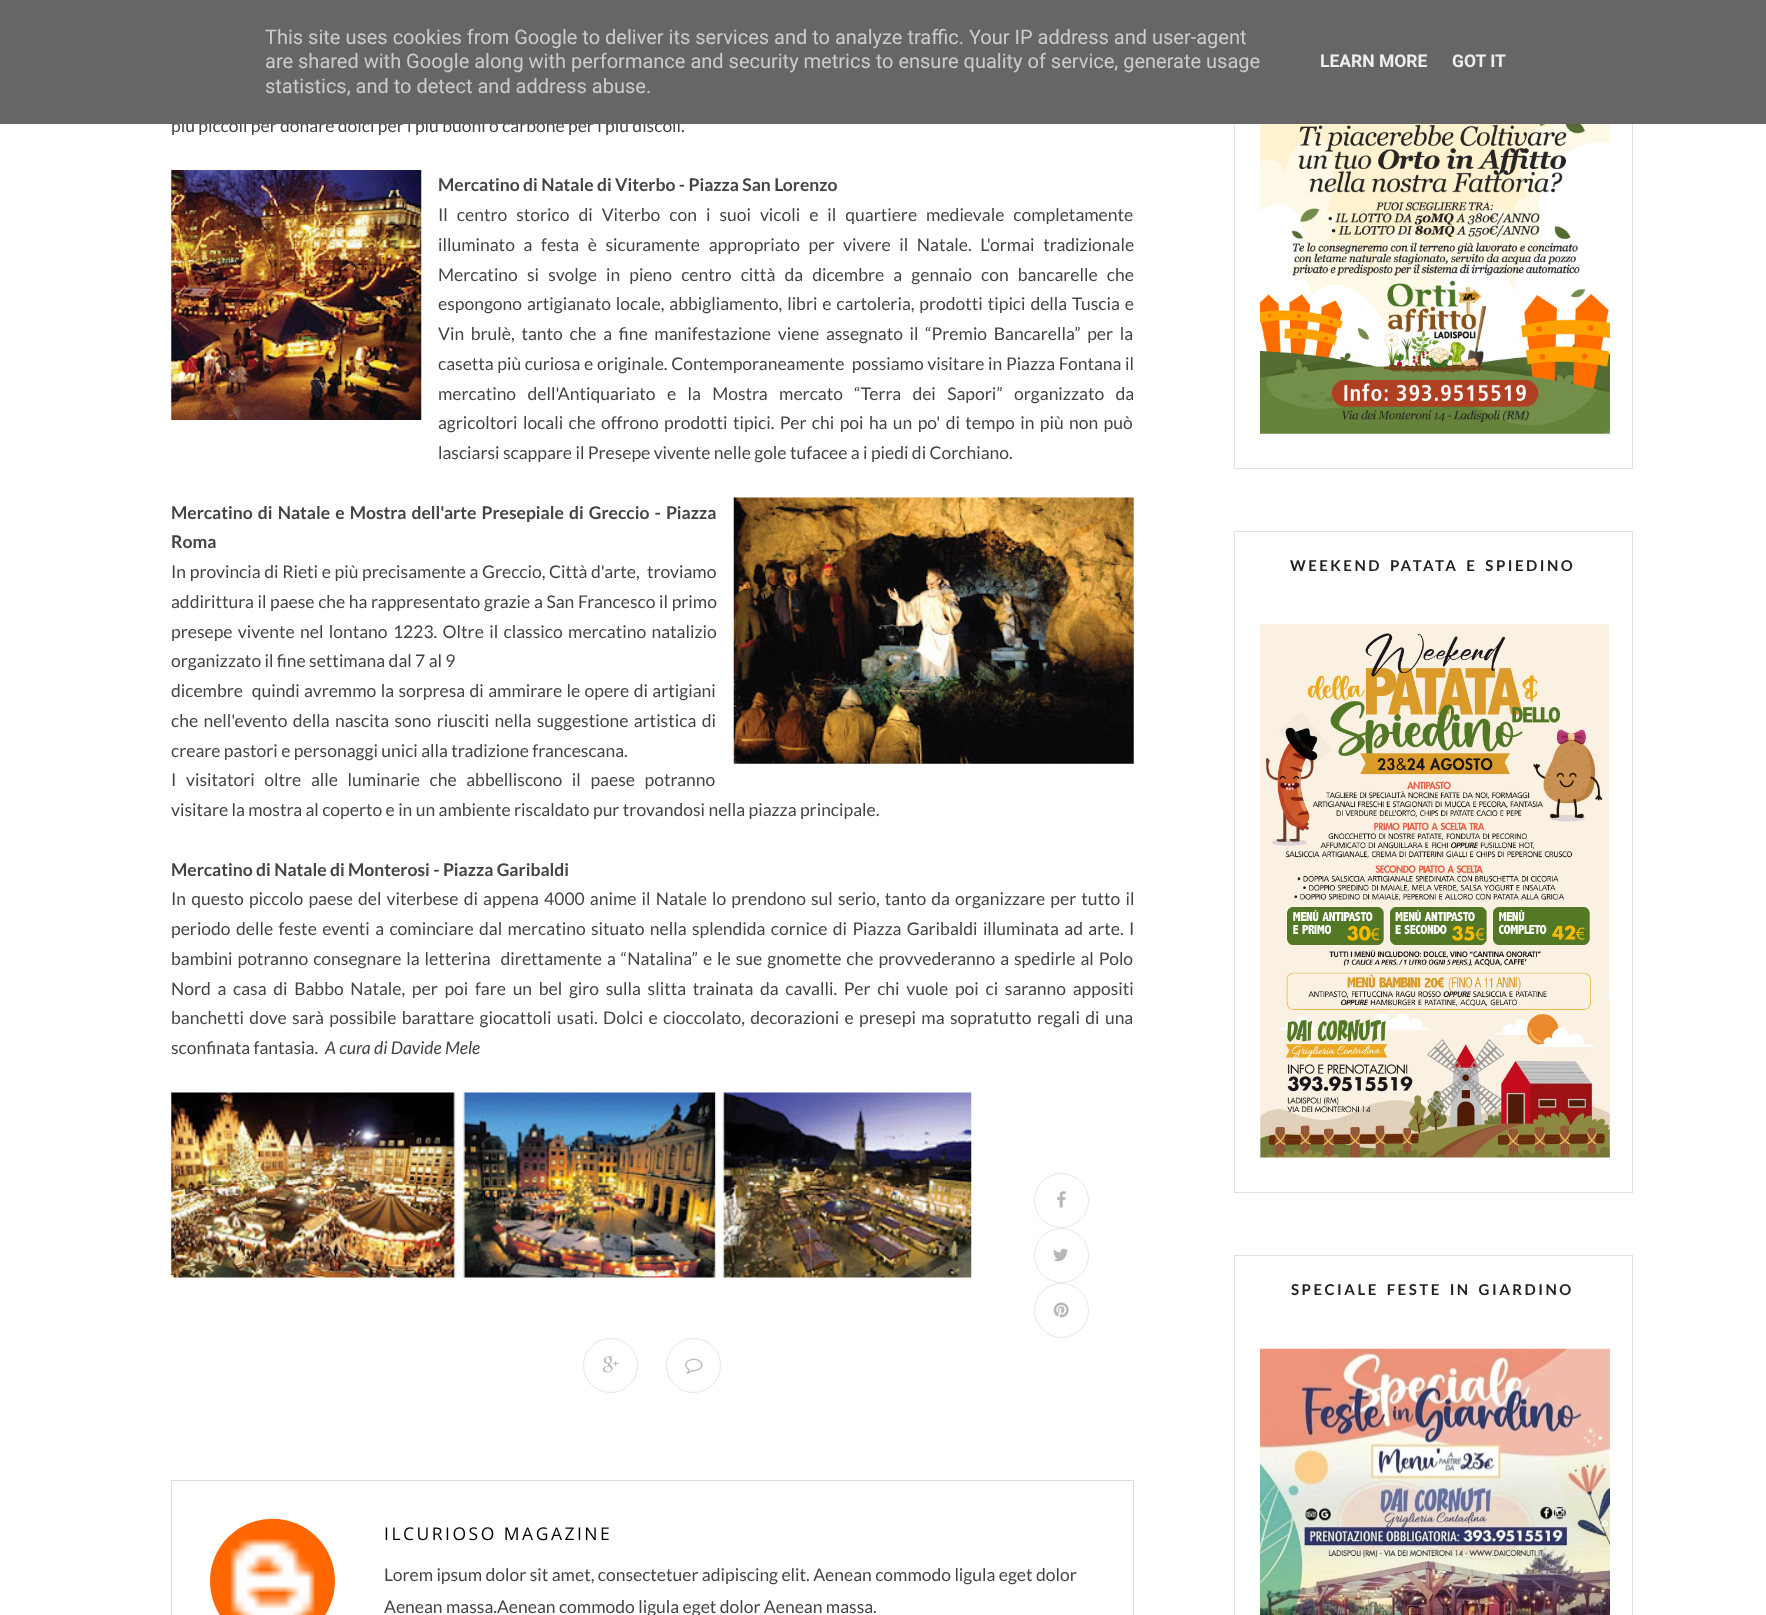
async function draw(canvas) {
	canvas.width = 1766;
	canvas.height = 1615;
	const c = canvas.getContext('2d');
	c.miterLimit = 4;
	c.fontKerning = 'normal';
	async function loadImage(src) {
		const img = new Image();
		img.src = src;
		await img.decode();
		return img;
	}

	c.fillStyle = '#fff';
	c.fillRect(0, 0, 1766, 1615);
	c.font = '17.5px Lato';
	c.fillStyle = '#444';
	c.fillText('più piccoli per donare dolci per i più buoni o carbone per i più discoli.', 171, 132);
	c.strokeStyle = '#e1e1e1';
	c.strokeRect(1234.5, -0.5, 398, 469);
	c.fillStyle = '#666';
	c.fillRect(0, 0, 1766, 124);
	c.font = '20px Roboto';
	c.fillStyle = '#ccc';
	for (const [text, x, y] of [
		['This site uses cookies from Google to deliver its services and to analyze traffic. Your IP address and user-agent', 265, 44],
		['are shared with Google along with performance and security metrics to ensure quality of service, generate usage', 265, 68],
		['statistics, and to detect and address abuse.', 265, 93],
	]) {
		c.fillText(text, x, y);
	}
	c.font = 'bold 17.5px Roboto';
	c.fillStyle = '#eee';
	c.fillText('LEARN MORE', 1320, 67);
	c.fillText('GOT IT', 1452, 67);
	c.drawImage(await loadImage('img1.png'), 171, 170, 251, 250);
	c.font = 'bold 17.5px Lato';
	c.fillStyle = '#444';
	c.fillText('Mercatino di Natale di Viterbo - Piazza San Lorenzo', 438, 191);
	c.wordSpacing = '5.6px';
	c.font = '17.5px Lato';
	c.fillText('Il centro storico di Viterbo con i suoi vicoli e il quartiere medievale completamente', 438, 221);
	c.wordSpacing = '5.25px';
	c.fillText('illuminato a festa è sicuramente appropriato per vivere il Natale. L\'ormai tradizionale', 438, 251);
	c.wordSpacing = '5.75px';
	c.fillText('Mercatino si svolge in pieno centro città da dicembre a gennaio con bancarelle che', 438, 281);
	c.wordSpacing = '1.5px';
	c.fillText('espongono artigianato locale, abbigliamento, libri e cartoleria, prodotti tipici della Tuscia e', 438, 310);
	c.wordSpacing = '3.3px';
	c.fillText('Vin brulè, tanto che a fine manifestazione viene assegnato il “Premio Bancarella” per la', 438, 340);
	c.wordSpacing = '0.25px';
	c.fillText('casetta più curiosa e originale. Contemporaneamente  possiamo visitare in Piazza Fontana il', 438, 370);
	c.wordSpacing = '8px';
	c.fillText('mercatino dell\'Antiquariato e la Mostra mercato “Terra dei Sapori” organizzato da', 438, 400);
	c.wordSpacing = '2px';
	c.fillText('agricoltori locali che offrono prodotti tipici. Per chi poi ha un po\' di tempo in più non può', 438, 429);
	c.wordSpacing = '0px';
	c.fillText('lasciarsi scappare il Presepe vivente nelle gole tufacee a i piedi di Corchiano.', 438, 459);
	c.wordSpacing = '1.75px';
	c.font = 'bold 17.5px Lato';
	c.fillText('Mercatino di Natale e Mostra dell\'arte Presepiale di Greccio - Piazza', 171, 519);
	c.drawImage(await loadImage('img2.png'), 733, 497, 401, 267);
	c.wordSpacing = '0px';
	c.fillText('Roma', 171, 548);
	c.wordSpacing = '0.25px';
	c.font = '17.5px Lato';
	c.fillText('In provincia di Rieti e più precisamente a Greccio, Città d\'arte,  troviamo', 171, 578);
	c.fillText('addirittura il paese che ha rappresentato grazie a San Francesco il primo', 171, 608);
	c.wordSpacing = '2px';
	c.fillText('presepe vivente nel lontano 1223. Oltre il classico mercatino natalizio', 171, 638);
	c.wordSpacing = '0px';
	c.fillText('organizzato il fine settimana dal 7 al 9', 171, 667);
	c.wordSpacing = '1px';
	c.fillText('dicembre  quindi avremmo la sorpresa di ammirare le opere di artigiani', 171, 697);
	c.wordSpacing = '2px';
	c.fillText('che nell\'evento della nascita sono riusciti nella suggestione artistica di', 171, 727);
	c.wordSpacing = '0px';
	c.fillText('creare pastori e personaggi unici alla tradizione francescana.', 171, 757);
	c.wordSpacing = '6.25px';
	c.fillText('I visitatori oltre alle luminarie che abbelliscono il paese potranno', 171, 786);
	c.wordSpacing = '0px';
	c.fillText('visitare la mostra al coperto e in un ambiente riscaldato pur trovandosi nella piazza principale.', 171, 816);
	c.font = 'bold 17.5px Lato';
	c.fillText('Mercatino di Natale di Monterosi - Piazza Garibaldi', 171, 876);
	c.wordSpacing = '1.75px';
	c.font = '17.5px Lato';
	c.fillText('In questo piccolo paese del viterbese di appena 4000 anime il Natale lo prendono sul serio, tanto da organizzare per tutto il', 171, 905);
	c.wordSpacing = '2px';
	c.fillText('periodo delle feste eventi a cominciare dal mercatino situato nella splendida cornice di Piazza Garibaldi illuminata ad arte. I', 171, 935);
	c.wordSpacing = '1.6px';
	c.fillText('bambini potranno consegnare la letterina  direttamente a “Natalina” e le sue gnomette che provvederanno a spedirle al Polo', 171, 965);
	c.wordSpacing = '3.3px';
	c.fillText('Nord a casa di Babbo Natale, per poi fare un bel giro sulla slitta trainata da cavalli. Per chi vuole poi ci saranno appositi', 171, 995);
	c.wordSpacing = '2px';
	c.fillText('banchetti dove sarà possibile barattare giocattoli usati. Dolci e cioccolato, decorazioni e presepi ma sopratutto regali di una', 171, 1024);
	c.wordSpacing = '0px';
	c.fillText('sconfinata fantasia.', 171, 1054);
	c.font = 'italic 17.5px Lato';
	c.fillText('A cura di Davide Mele', 325, 1054);
	c.drawImage(await loadImage('img3.png'), 171, 1092, 801, 186);
	c.beginPath();
	c.arc(1061.5, 1200.5, 27, 0, 2 * Math.PI);
	c.strokeStyle = '#e5e5e5';
	c.stroke();
	c.drawImage(await loadImage('img4.png'), 1057, 1191, 9, 17);
	c.beginPath();
	c.arc(1061.5, 1255.5, 27, 0, 2 * Math.PI);
	c.stroke();
	c.drawImage(await loadImage('img5.png'), 1053, 1248, 15, 14);
	c.beginPath();
	c.arc(1061.5, 1310.5, 27, 0, 2 * Math.PI);
	c.stroke();
	c.drawImage(await loadImage('img6.png'), 1053, 1302, 16, 16);
	c.beginPath();
	c.arc(610.5, 1365.5, 27, 0, 2 * Math.PI);
	c.stroke();
	c.drawImage(await loadImage('img7.png'), 602, 1356, 17, 17);
	c.beginPath();
	c.arc(693.5, 1365.5, 27, 0, 2 * Math.PI);
	c.stroke();
	c.drawImage(await loadImage('img8.png'), 685, 1358, 18, 16);
	c.strokeStyle = '#ddd';
	c.strokeRect(171.5, 1480.5, 962, 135);
	c.drawImage(await loadImage('img9.png'), 210, 1518, 125, 97);
	c.letterSpacing = '2.5px';
	c.font = '17.5px Open Sans';
	c.fillStyle = '#000';
	c.fillText('ILCURIOSO MAGAZINE', 384, 1540);
	c.letterSpacing = '0px';
	c.font = '17.5px Lato';
	c.fillStyle = '#444';
	c.fillText('Lorem ipsum dolor sit amet, consectetuer adipiscing elit. Aenean commodo ligula eget dolor', 384, 1581);
	c.fillText('Aenean massa.Aenean commodo ligula eget dolor Aenean massa.', 384, 1613);
	c.drawImage(await loadImage('img10.png'), 1260, 124, 350, 310);
	c.strokeStyle = '#e1e1e1';
	c.strokeRect(1234.5, 531.5, 398, 661);
	c.letterSpacing = '2.5px';
	c.wordSpacing = '2.5px';
	c.font = 'bold 15px Lato';
	c.fillStyle = '#222';
	c.fillText('WEEKEND PATATA E SPIEDINO', 1290, 571);
	c.drawImage(await loadImage('img11.png'), 1260, 623, 350, 535);
	c.strokeRect(1234.5, 1255.5, 398, 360);
	c.fillText('SPECIALE FESTE IN GIARDINO', 1291, 1295);
	c.drawImage(await loadImage('img12.png'), 1260, 1348, 350, 267);
}

draw(document.querySelector('canvas'));
